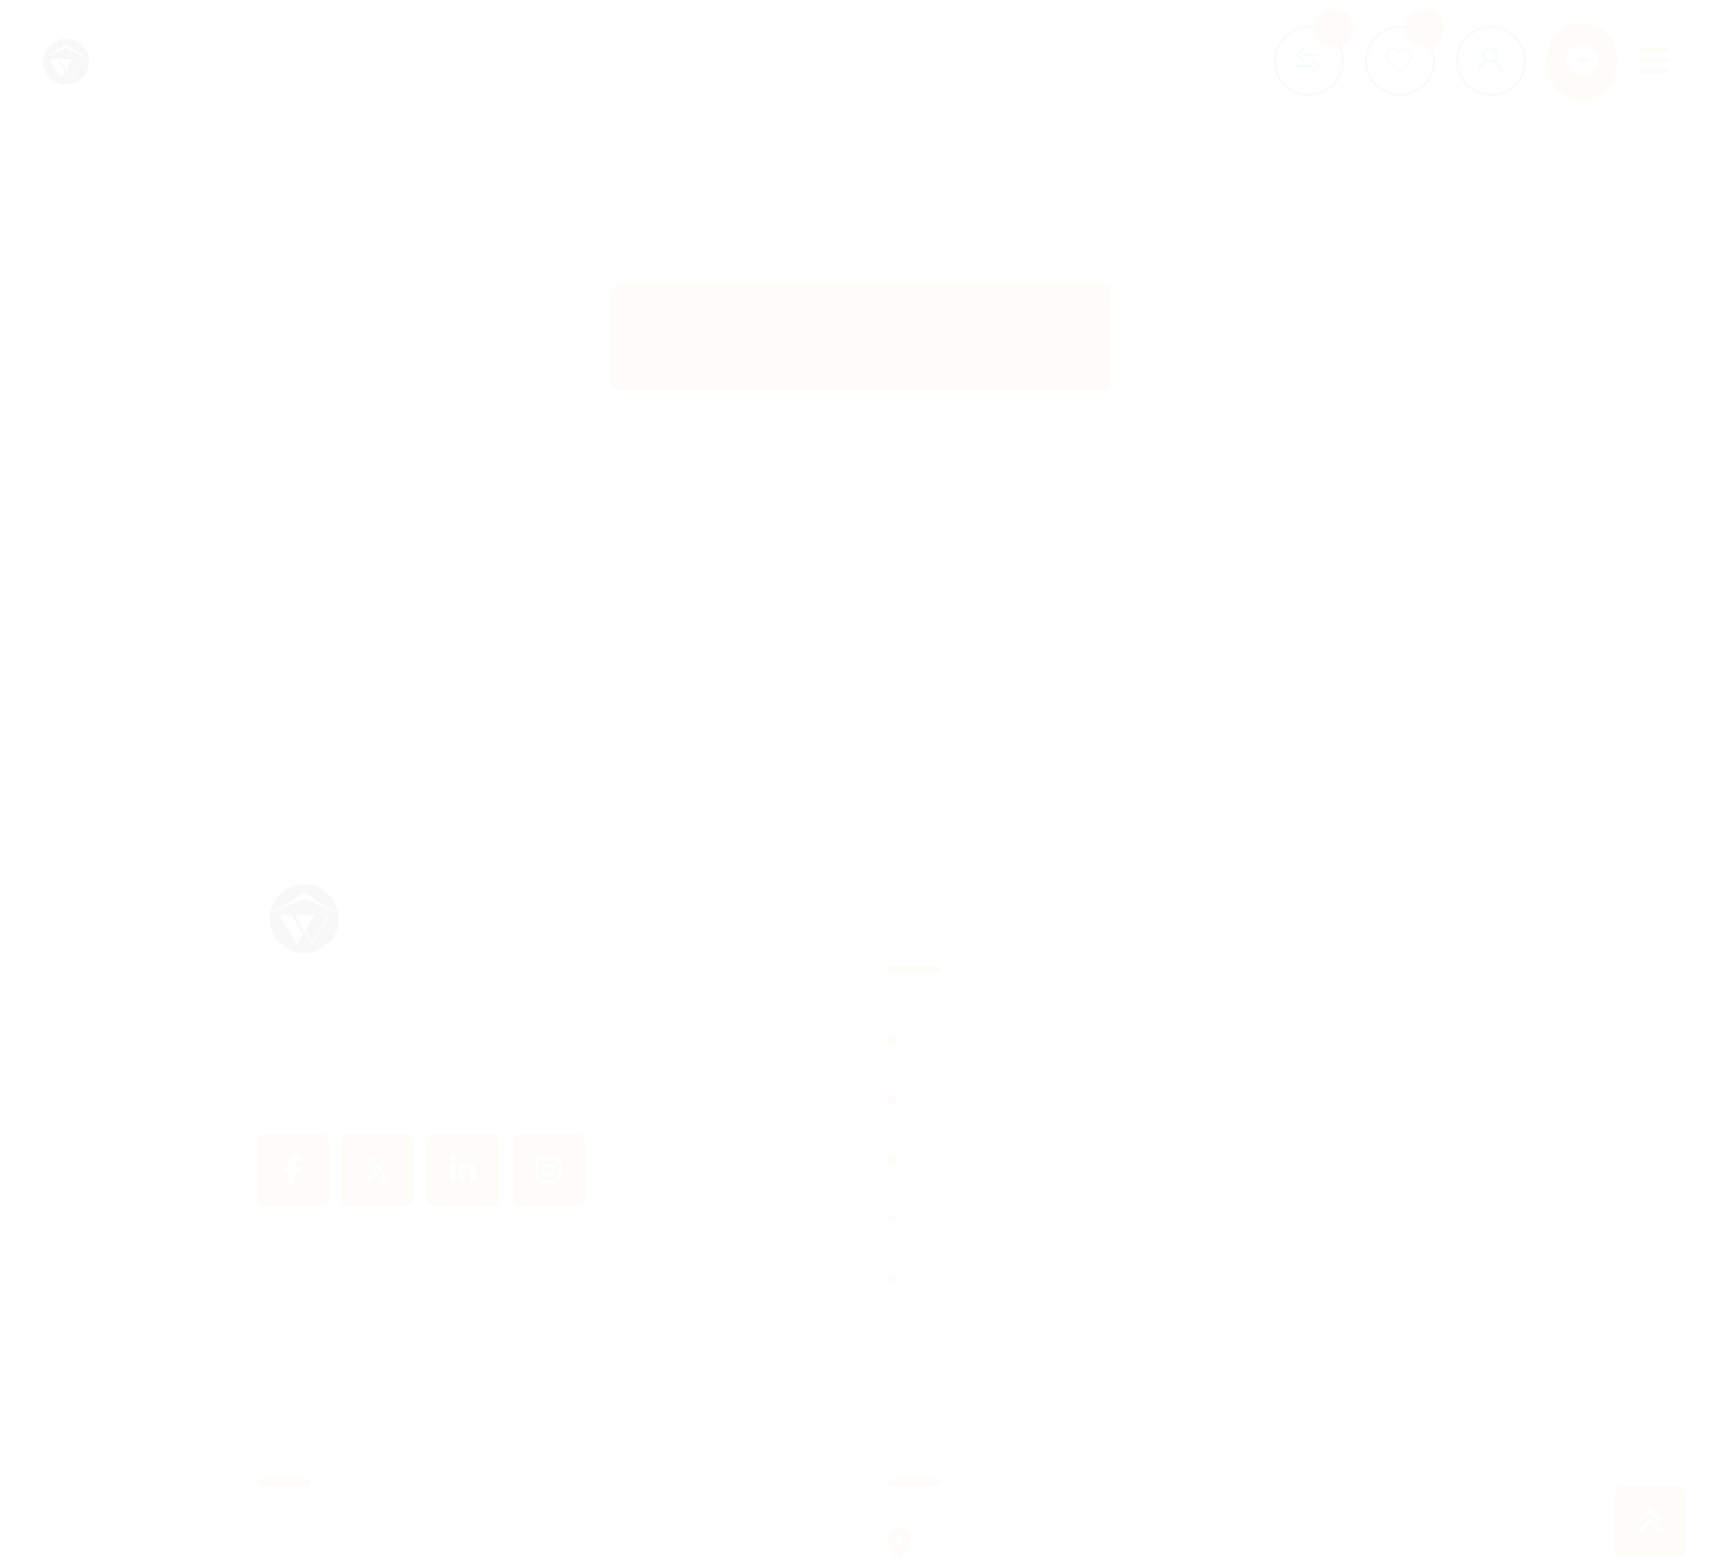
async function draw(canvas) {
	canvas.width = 1719;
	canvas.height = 1564;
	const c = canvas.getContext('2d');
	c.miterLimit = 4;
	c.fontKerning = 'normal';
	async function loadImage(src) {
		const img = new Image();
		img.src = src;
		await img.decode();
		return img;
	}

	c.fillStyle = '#fff';
	c.fillRect(0, 0, 1719, 1564);
	c.drawImage(await loadImage('img1.png'), 43, 38, 236, 47);
	c.beginPath();
	c.arc(1309, 61, 34, 0, 2 * Math.PI);
	c.strokeStyle = '#fafafa';
	c.lineWidth = 2;
	c.stroke();
	c.fillStyle = '#fdfcf9';
	c.beginPath();
	c.roundRect(1314, 9, 39, 38, 19);
	c.fill();
	c.drawImage(await loadImage('img2.png'), 1295, 47, 27, 27);
	c.beginPath();
	c.arc(1400, 61, 34, 0, 2 * Math.PI);
	c.stroke();
	c.beginPath();
	c.roundRect(1405, 9, 39, 38, 19);
	c.fill();
	c.drawImage(await loadImage('img3.png'), 1386, 48, 27, 24);
	c.beginPath();
	c.arc(1491, 61, 34, 0, 2 * Math.PI);
	c.stroke();
	c.drawImage(await loadImage('img4.png'), 1477, 47, 27, 27);
	c.beginPath();
	c.roundRect(1547, 23, 70, 77, 35);
	c.fill();
	c.drawImage(await loadImage('img5.png'), 1566, 44, 32, 32);
	c.drawImage(await loadImage('img6.png'), 1638, 47, 31, 27);
	c.beginPath();
	c.roundRect(611, 285, 499, 105, 7);
	c.fill();
	c.drawImage(await loadImage('img7.png'), 269, 884, 358, 70);
	c.beginPath();
	c.roundRect(257, 1134, 72, 72, 7);
	c.fill();
	c.drawImage(await loadImage('img8.png'), 284, 1155, 18, 30);
	c.beginPath();
	c.roundRect(341, 1134, 72, 72, 7);
	c.fill();
	c.drawImage(await loadImage('img9.png'), 364, 1158, 27, 25);
	c.beginPath();
	c.roundRect(427, 1134, 72, 72, 7);
	c.fill();
	c.drawImage(await loadImage('img10.png'), 449, 1155, 27, 27);
	c.beginPath();
	c.roundRect(513, 1134, 72, 72, 7);
	c.fill();
	c.drawImage(await loadImage('img11.png'), 535, 1157, 27, 27);
	c.beginPath();
	c.roundRect(887, 966, 53, 7, 3.5);
	c.fill();
	c.beginPath();
	c.arc(891.5, 1040.5, 4.5, 0, 2 * Math.PI);
	c.fill();
	c.beginPath();
	c.roundRect(887, 1096, 9, 8, 4);
	c.fill();
	c.beginPath();
	c.arc(891.5, 1159.5, 4.5, 0, 2 * Math.PI);
	c.fill();
	c.beginPath();
	c.roundRect(887, 1215, 9, 8, 4);
	c.fill();
	c.beginPath();
	c.arc(891.5, 1278.5, 4.5, 0, 2 * Math.PI);
	c.fill();
	c.beginPath();
	c.roundRect(257, 1479, 53, 7, 3.5);
	c.fill();
	c.beginPath();
	c.roundRect(887, 1479, 53, 7, 3.5);
	c.fill();
	c.drawImage(await loadImage('img12.png'), 887, 1528, 24, 32);
	c.beginPath();
	c.roundRect(1615, 1486, 70, 70, 7);
	c.fill();
	c.drawImage(await loadImage('img13.png'), 1639, 1508, 22, 24);
}

draw(document.querySelector('canvas'));
